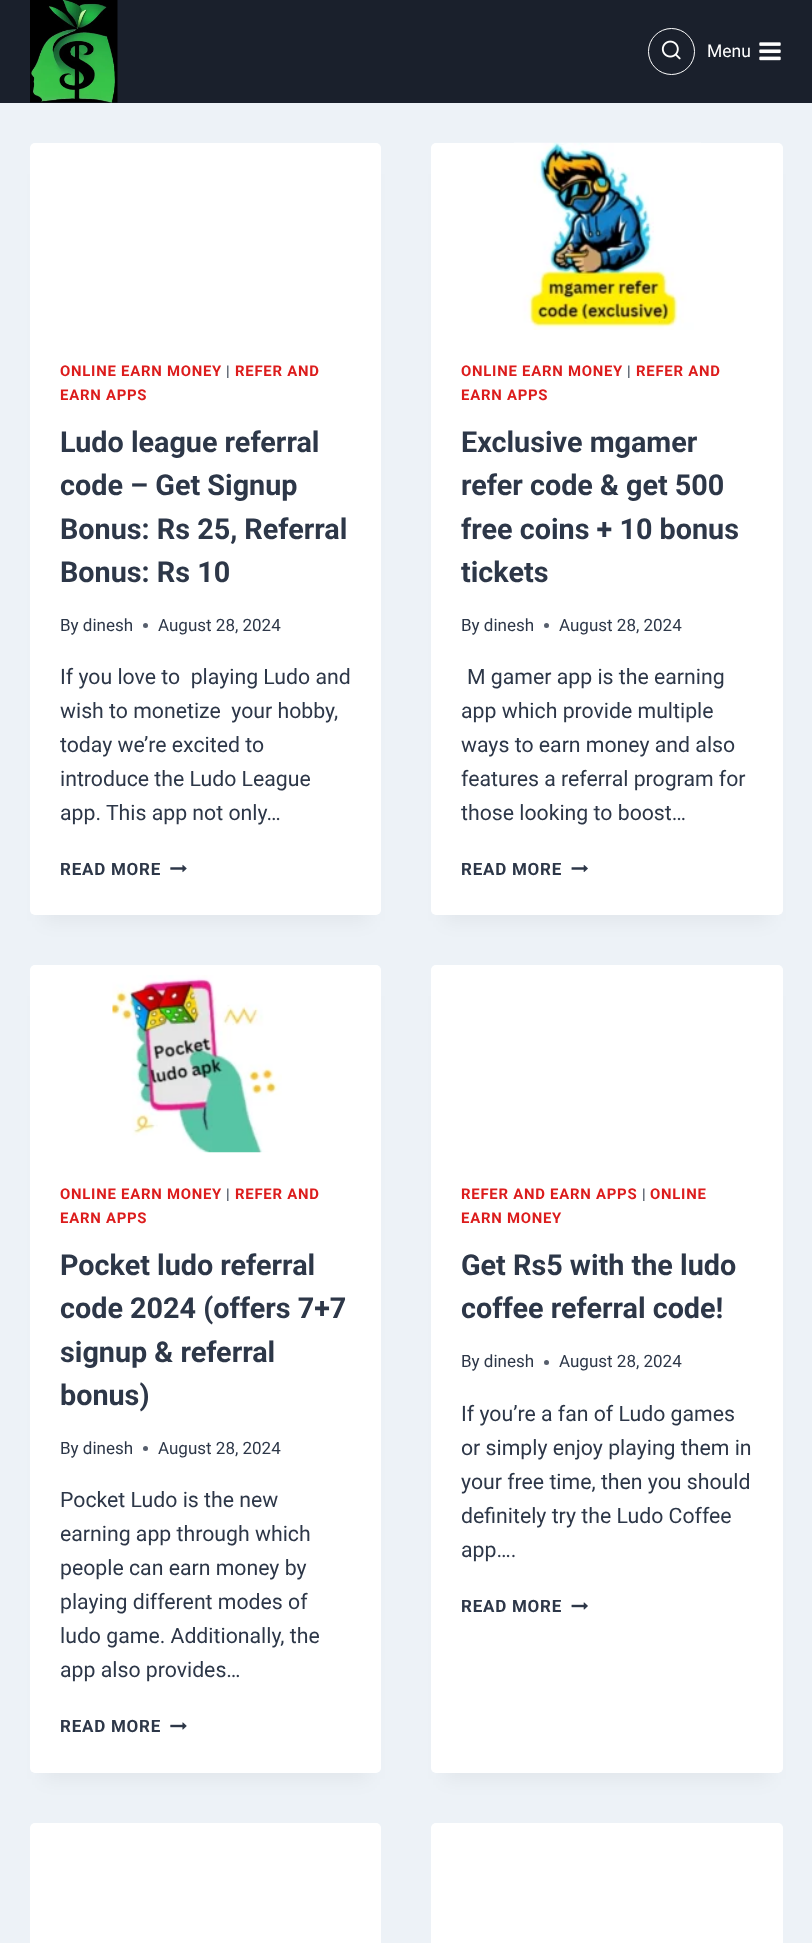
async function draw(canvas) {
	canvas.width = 812;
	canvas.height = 1943;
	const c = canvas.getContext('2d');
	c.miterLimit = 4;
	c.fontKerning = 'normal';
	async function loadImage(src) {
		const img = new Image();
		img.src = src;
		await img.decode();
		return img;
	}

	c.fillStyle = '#edf2f7';
	c.fillRect(0, 0, 812, 1943);
	c.fillStyle = '#1a202c';
	c.fillRect(0, 0, 812, 103);
	c.drawImage(await loadImage('img1.png'), 30, 0, 88, 103);
	c.beginPath();
	c.arc(671.5, 51.5, 23, 0, 2 * Math.PI);
	c.strokeStyle = '#fff';
	c.stroke();
	c.drawImage(await loadImage('img2.png'), 661, 40, 20, 20);
	c.font = '17.5px Roboto';
	c.fillStyle = '#fff';
	c.fillText('Menu', 707, 57);
	c.drawImage(await loadImage('img3.png'), 759, 42, 22, 19);
	c.fillStyle = '#0000000d';
	c.filter = 'blur(9.5px)';
	c.beginPath();
	c.rect(43, 174, 326, 747);
	c.fill();
	c.filter = 'none';
	c.fillStyle = '#fff';
	c.beginPath();
	c.roundRect(30, 143, 351, 772, 5);
	c.fill();
	c.letterSpacing = '0.75px';
	c.font = 'bold 14.9px Roboto';
	c.fillStyle = '#dc1c1c';
	c.fillText('ONLINE EARN MONEY', 60, 376);
	c.font = '14.9px Roboto';
	c.fillStyle = '#2d3748';
	c.fillText('|', 226, 376);
	c.font = 'bold 14.9px Roboto';
	c.fillStyle = '#dc1c1c';
	c.fillText('REFER AND', 235, 376);
	c.fillText('EARN APPS', 60, 400);
	c.letterSpacing = '0px';
	c.font = 'bold 28.75px Roboto';
	c.fillStyle = '#2d3748';
	for (const [text, x, y] of [
		['Ludo league referral', 60, 452],
		['code – Get Signup', 60, 495],
		['Bonus: Rs 25, Referral', 60, 539],
		['Bonus: Rs 10', 60, 582],
	]) {
		c.fillText(text, x, y);
	}
	c.font = '17px Roboto';
	c.fillText('By dinesh', 60, 631);
	c.fillStyle = '#575f6d';
	c.beginPath();
	c.arc(145.5, 625.5, 2.5, 0, 2 * Math.PI);
	c.fill();
	c.fillStyle = '#2d3748';
	c.fillText('August 28, 2024', 158, 631);
	c.font = '21.25px Roboto';
	for (const [text, x, y] of [
		['If you love to  playing Ludo and', 60, 684],
		['wish to monetize  your hobby,', 60, 718],
		['today we’re excited to', 60, 752],
		['introduce the Ludo League', 60, 786],
		['app. This app not only…', 60, 820],
	]) {
		c.fillText(text, x, y);
	}
	c.letterSpacing = '0.75px';
	c.font = 'bold 17px Roboto';
	c.fillText('READ MORE', 60, 875);
	c.drawImage(await loadImage('img4.png'), 170, 864, 17, 9);
	c.fillStyle = '#0000000d';
	c.filter = 'blur(9.5px)';
	c.beginPath();
	c.rect(444, 174, 326, 747);
	c.fill();
	c.filter = 'none';
	c.fillStyle = '#fff';
	c.beginPath();
	c.roundRect(431, 143, 352, 772, 5);
	c.fill();
	c.drawImage(await loadImage('img5.png'), 514, 142, 187, 188);
	c.font = 'bold 14.9px Roboto';
	c.fillStyle = '#dc1c1c';
	c.fillText('ONLINE EARN MONEY', 461, 376);
	c.font = '14.9px Roboto';
	c.fillStyle = '#2d3748';
	c.fillText('|', 627, 376);
	c.font = 'bold 14.9px Roboto';
	c.fillStyle = '#dc1c1c';
	c.fillText('REFER AND', 636, 376);
	c.fillText('EARN APPS', 461, 400);
	c.letterSpacing = '0px';
	c.font = 'bold 28.75px Roboto';
	c.fillStyle = '#2d3748';
	for (const [text, x, y] of [
		['Exclusive mgamer', 461, 452],
		['refer code & get 500', 461, 495],
		['free coins + 10 bonus', 461, 539],
		['tickets', 461, 582],
	]) {
		c.fillText(text, x, y);
	}
	c.font = '17px Roboto';
	c.fillText('By dinesh', 461, 631);
	c.fillStyle = '#575f6d';
	c.beginPath();
	c.arc(546.5, 625.5, 2.5, 0, 2 * Math.PI);
	c.fill();
	c.fillStyle = '#2d3748';
	c.fillText('August 28, 2024', 559, 631);
	c.font = '21.25px Roboto';
	for (const [text, x, y] of [
		['M gamer app is the earning', 467, 684],
		['app which provide multiple', 461, 718],
		['ways to earn money and also', 461, 752],
		['features a referral program for', 461, 786],
		['those looking to boost…', 461, 820],
	]) {
		c.fillText(text, x, y);
	}
	c.letterSpacing = '0.75px';
	c.font = 'bold 17px Roboto';
	c.fillText('READ MORE', 461, 875);
	c.drawImage(await loadImage('img6.png'), 571, 865, 17, 7);
	c.fillStyle = '#0000000d';
	c.filter = 'blur(9.5px)';
	c.beginPath();
	c.rect(43, 996, 326, 783);
	c.fill();
	c.filter = 'none';
	c.fillStyle = '#fff';
	c.beginPath();
	c.roundRect(30, 965, 351, 808, 5);
	c.fill();
	c.drawImage(await loadImage('img7.png'), 112, 975, 170, 178);
	c.font = 'bold 14.9px Roboto';
	c.fillStyle = '#dc1c1c';
	c.fillText('ONLINE EARN MONEY', 60, 1199);
	c.font = '14.9px Roboto';
	c.fillStyle = '#2d3748';
	c.fillText('|', 226, 1199);
	c.font = 'bold 14.9px Roboto';
	c.fillStyle = '#dc1c1c';
	c.fillText('REFER AND', 235, 1199);
	c.fillText('EARN APPS', 60, 1223);
	c.letterSpacing = '0px';
	c.font = 'bold 28.75px Roboto';
	c.fillStyle = '#2d3748';
	for (const [text, x, y] of [
		['Pocket ludo referral', 60, 1275],
		['code 2024 (offers 7+7', 60, 1318],
		['signup & referral', 60, 1362],
		['bonus)', 60, 1405],
	]) {
		c.fillText(text, x, y);
	}
	c.font = '17px Roboto';
	c.fillText('By dinesh', 60, 1454);
	c.fillStyle = '#575f6d';
	c.beginPath();
	c.arc(145.5, 1448.5, 2.5, 0, 2 * Math.PI);
	c.fill();
	c.fillStyle = '#2d3748';
	c.fillText('August 28, 2024', 158, 1454);
	c.font = '21.25px Roboto';
	for (const [text, x, y] of [
		['Pocket Ludo is the new', 60, 1507],
		['earning app through which', 60, 1541],
		['people can earn money by', 60, 1575],
		['playing different modes of', 60, 1609],
		['ludo game. Additionally, the', 60, 1643],
		['app also provides…', 60, 1677],
	]) {
		c.fillText(text, x, y);
	}
	c.letterSpacing = '0.75px';
	c.font = 'bold 17px Roboto';
	c.fillText('READ MORE', 60, 1732);
	c.drawImage(await loadImage('img8.png'), 170, 1722, 17, 8);
	c.fillStyle = '#0000000d';
	c.filter = 'blur(9.5px)';
	c.beginPath();
	c.rect(444, 996, 326, 783);
	c.fill();
	c.filter = 'none';
	c.fillStyle = '#fff';
	c.beginPath();
	c.roundRect(431, 965, 352, 808, 5);
	c.fill();
	c.font = 'bold 14.9px Roboto';
	c.fillStyle = '#dc1c1c';
	c.fillText('REFER AND EARN APPS', 461, 1199);
	c.font = '14.9px Roboto';
	c.fillStyle = '#2d3748';
	c.fillText('|', 642, 1199);
	c.font = 'bold 14.9px Roboto';
	c.fillStyle = '#dc1c1c';
	c.fillText('ONLINE', 650, 1199);
	c.fillText('EARN MONEY', 461, 1223);
	c.letterSpacing = '0px';
	c.font = 'bold 28.75px Roboto';
	c.fillStyle = '#2d3748';
	c.fillText('Get Rs5 with the ludo', 461, 1275);
	c.fillText('coffee referral code!', 461, 1318);
	c.font = '17px Roboto';
	c.fillText('By dinesh', 461, 1367);
	c.fillStyle = '#575f6d';
	c.beginPath();
	c.arc(546.5, 1362.5, 2.5, 0, 2 * Math.PI);
	c.fill();
	c.fillStyle = '#2d3748';
	c.fillText('August 28, 2024', 559, 1367);
	c.font = '21.25px Roboto';
	for (const [text, x, y] of [
		['If you’re a fan of Ludo games', 461, 1421],
		['or simply enjoy playing them in', 461, 1455],
		['your free time, then you should', 461, 1489],
		['definitely try the Ludo Coffee', 461, 1523],
		['app….', 461, 1557],
	]) {
		c.fillText(text, x, y);
	}
	c.letterSpacing = '0.75px';
	c.font = 'bold 17px Roboto';
	c.fillText('READ MORE', 461, 1612);
	c.drawImage(await loadImage('img9.png'), 571, 1602, 17, 8);
	c.fillStyle = '#fff';
	c.beginPath();
	c.roundRect(30, 1823, 351, 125, 5);
	c.fill();
	c.beginPath();
	c.roundRect(431, 1823, 352, 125, 5);
	c.fill();
}

draw(document.querySelector('canvas'));
